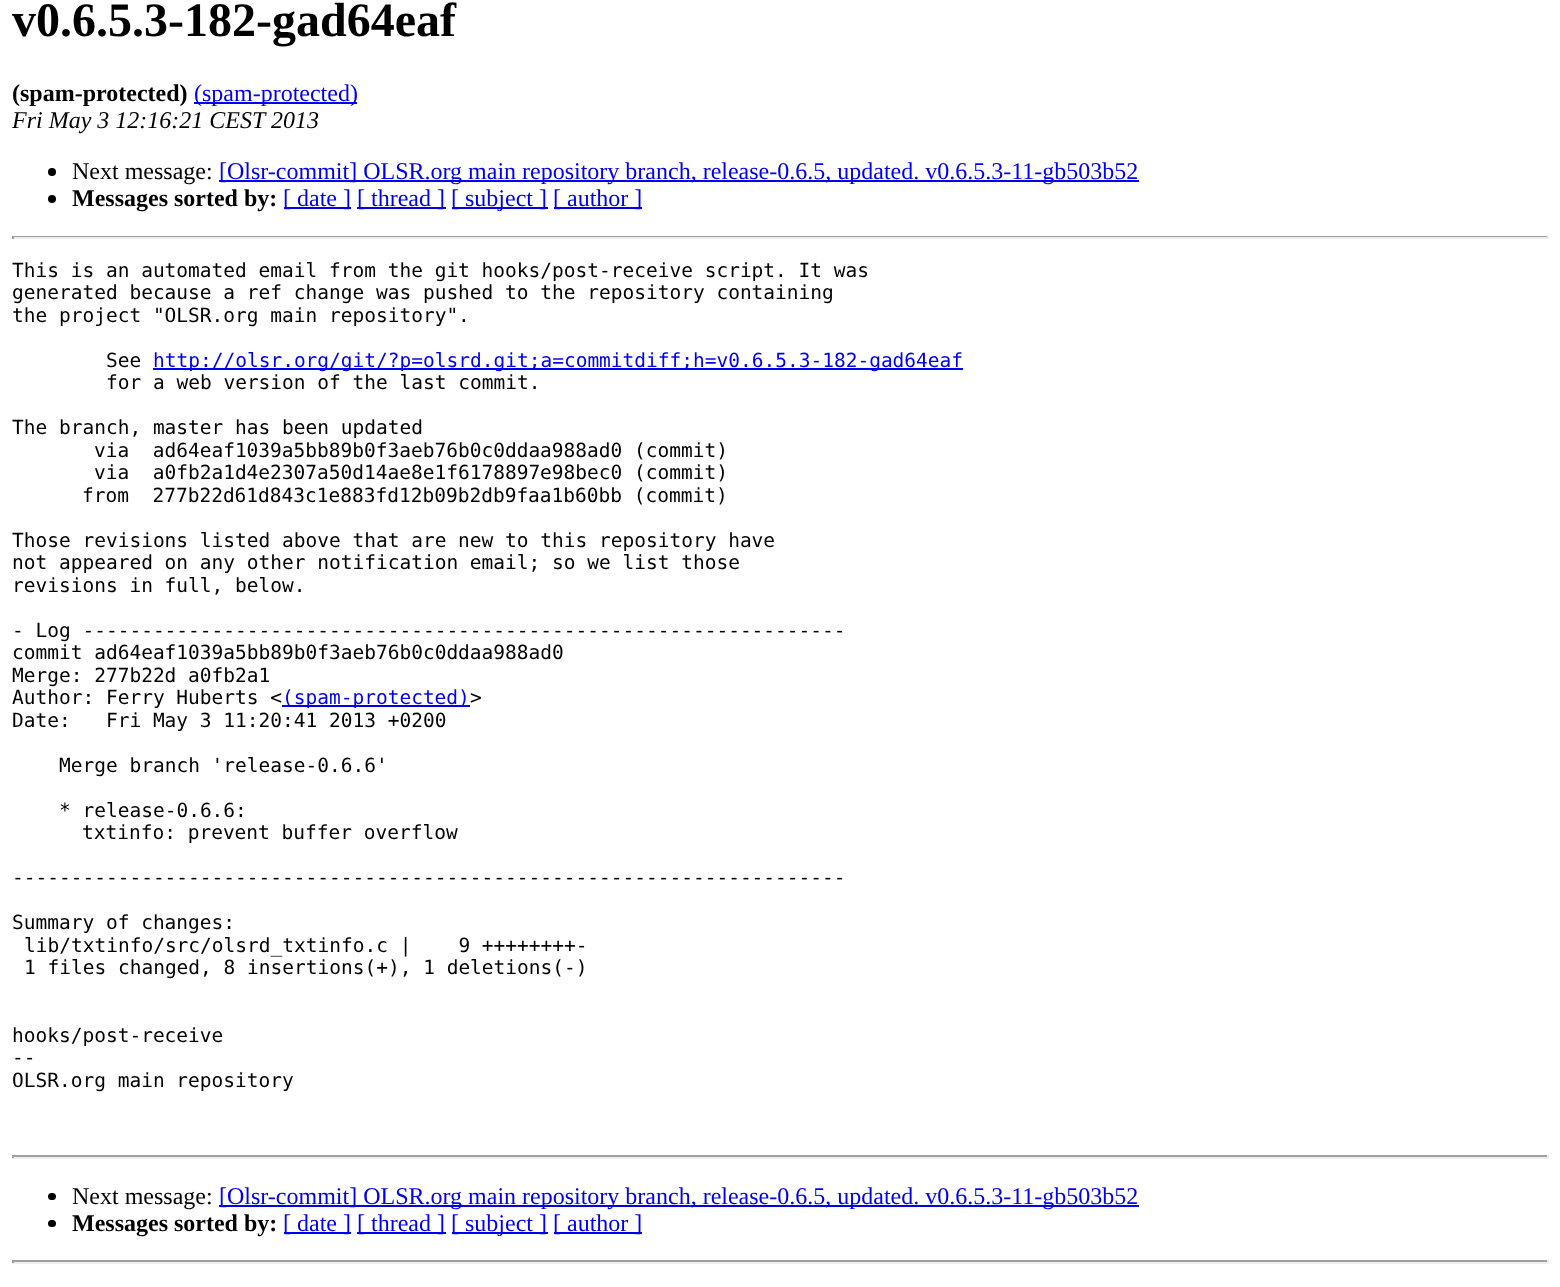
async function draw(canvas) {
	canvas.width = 1560;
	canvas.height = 1287;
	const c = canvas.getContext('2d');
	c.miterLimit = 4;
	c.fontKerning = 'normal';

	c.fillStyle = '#fff';
	c.fillRect(0, 0, 1560, 1287);
	c.font = 'bold 48px Liberation Serif';
	c.fillStyle = '#000';
	c.fillText('v0.6.5.3-182-gad64eaf', 12, 36);
	c.font = 'bold 24px Liberation Serif';
	c.fillText('(spam-protected)', 12, 101);
	c.fillStyle = '#00e';
	c.fillRect(194, 102, 163, 2);
	c.font = '24px Liberation Serif';
	c.fillText('(spam-protected)', 194, 101);
	c.font = 'italic 24px Liberation Serif';
	c.fillStyle = '#000';
	c.fillText('Fri May 3 12:16:21 CEST 2013', 12, 128);
	c.beginPath();
	c.arc(52, 172, 4, 0, 2 * Math.PI);
	c.fill();
	c.font = '24px Liberation Serif';
	c.fillText('Next message:', 72, 179);
	c.fillStyle = '#00e';
	c.fillRect(219, 180, 920, 2);
	c.fillText('[Olsr-commit] OLSR.org main repository branch, release-0.6.5, updated. v0.6.5.3-11-gb503b52', 219, 179);
	c.fillStyle = '#000';
	c.beginPath();
	c.arc(52, 199, 4, 0, 2 * Math.PI);
	c.fill();
	c.font = 'bold 24px Liberation Serif';
	c.fillText('Messages sorted by:', 72, 206);
	c.fillStyle = '#00e';
	c.fillRect(284, 207, 67, 2);
	c.font = '24px Liberation Serif';
	c.fillText('[ date ]', 283, 206);
	c.fillRect(357, 207, 89, 2);
	c.fillText('[ thread ]', 357, 206);
	c.fillRect(452, 207, 96, 2);
	c.fillText('[ subject ]', 451, 206);
	c.fillRect(554, 207, 88, 2);
	c.fillText('[ author ]', 553, 206);
	for (const [x, y, w, h, color] of [
		[12, 236, 1536, 1, '#9f9f9f'],
		[1547, 236, 2, 3, '#eee'],
		[12, 237, 1536, 2, '#eee'],
		[12, 236, 2, 3, '#9f9f9f'],
	]) {
		c.fillStyle = color;
		c.fillRect(x, y, w, h);
	}
	c.font = '19.5px DejaVu Sans Mono';
	c.fillStyle = '#000';
	for (const [text, x, y] of [
		['This is an automated email from the git hooks/post-receive script. It was', 12, 277],
		['generated because a ref change was pushed to the repository containing', 12, 299],
		['the project "OLSR.org main repository".', 12, 322],
		['See', 106, 367],
	]) {
		c.fillText(text, x, y);
	}
	c.fillStyle = '#00e';
	c.fillRect(153, 368, 810, 2);
	c.fillText('http://olsr.org/git/?p=olsrd.git;a=commitdiff;h=v0.6.5.3-182-gad64eaf', 153, 367);
	c.fillStyle = '#000';
	for (const [text, x, y] of [
		['for a web version of the last commit.', 106, 389],
		['The branch, master has been updated', 12, 434],
		['via  ad64eaf1039a5bb89b0f3aeb76b0c0ddaa988ad0 (commit)', 94, 457],
		['via  a0fb2a1d4e2307a50d14ae8e1f6178897e98bec0 (commit)', 94, 479],
		['from  277b22d61d843c1e883fd12b09b2db9faa1b60bb (commit)', 82, 502],
		['Those revisions listed above that are new to this repository have', 12, 547],
		['not appeared on any other notification email; so we list those', 12, 569],
		['revisions in full, below.', 12, 592],
		['- Log -----------------------------------------------------------------', 12, 637],
		['commit ad64eaf1039a5bb89b0f3aeb76b0c0ddaa988ad0', 12, 659],
		['Merge: 277b22d a0fb2a1', 12, 682],
		['Author: Ferry Huberts <', 12, 704],
	]) {
		c.fillText(text, x, y);
	}
	c.fillStyle = '#00e';
	c.fillRect(282, 705, 188, 2);
	c.fillText('(spam-protected)', 282, 704);
	c.fillStyle = '#000';
	for (const [text, x, y] of [
		['>', 470, 704],
		['Date:   Fri May 3 11:20:41 2013 +0200', 12, 727],
		['Merge branch \'release-0.6.6\'', 59, 772],
		['* release-0.6.6:', 59, 817],
		['txtinfo: prevent buffer overflow', 82, 839],
		['-----------------------------------------------------------------------', 12, 884],
		['Summary of changes:', 12, 929],
		['lib/txtinfo/src/olsrd_txtinfo.c |    9 ++++++++-', 24, 952],
		['1 files changed, 8 insertions(+), 1 deletions(-)', 24, 974],
		['hooks/post-receive', 12, 1042],
		['--', 12, 1064],
		['OLSR.org main repository', 12, 1087],
	]) {
		c.fillText(text, x, y);
	}
	for (const [x, y, w, h, color] of [
		[12, 1155, 1536, 2, '#9f9f9f'],
		[1547, 1155, 2, 3, '#eee'],
		[12, 1157, 1536, 2, '#eee'],
		[12, 1155, 2, 3, '#9f9f9f'],
	]) {
		c.fillStyle = color;
		c.fillRect(x, y, w, h);
	}
	c.fillStyle = '#000';
	c.beginPath();
	c.roundRect(48, 1193, 8, 7, 3.5);
	c.fill();
	c.font = '24px Liberation Serif';
	c.fillText('Next message:', 72, 1204);
	c.fillStyle = '#00e';
	c.fillRect(219, 1205, 920, 2);
	c.fillText('[Olsr-commit] OLSR.org main repository branch, release-0.6.5, updated. v0.6.5.3-11-gb503b52', 219, 1204);
	c.fillStyle = '#000';
	c.beginPath();
	c.roundRect(48, 1220, 8, 7, 3.5);
	c.fill();
	c.font = 'bold 24px Liberation Serif';
	c.fillText('Messages sorted by:', 72, 1231);
	c.fillStyle = '#00e';
	c.fillRect(284, 1232, 67, 2);
	c.font = '24px Liberation Serif';
	c.fillText('[ date ]', 283, 1231);
	c.fillRect(357, 1232, 89, 2);
	c.fillText('[ thread ]', 357, 1231);
	c.fillRect(452, 1232, 96, 2);
	c.fillText('[ subject ]', 451, 1231);
	c.fillRect(554, 1232, 88, 2);
	c.fillText('[ author ]', 553, 1231);
	for (const [x, y, w, h, color] of [
		[12, 1260, 1536, 2, '#9f9f9f'],
		[1547, 1260, 2, 3, '#eee'],
		[12, 1262, 1536, 2, '#eee'],
		[12, 1260, 2, 3, '#9f9f9f'],
	]) {
		c.fillStyle = color;
		c.fillRect(x, y, w, h);
	}
}

draw(document.querySelector('canvas'));
